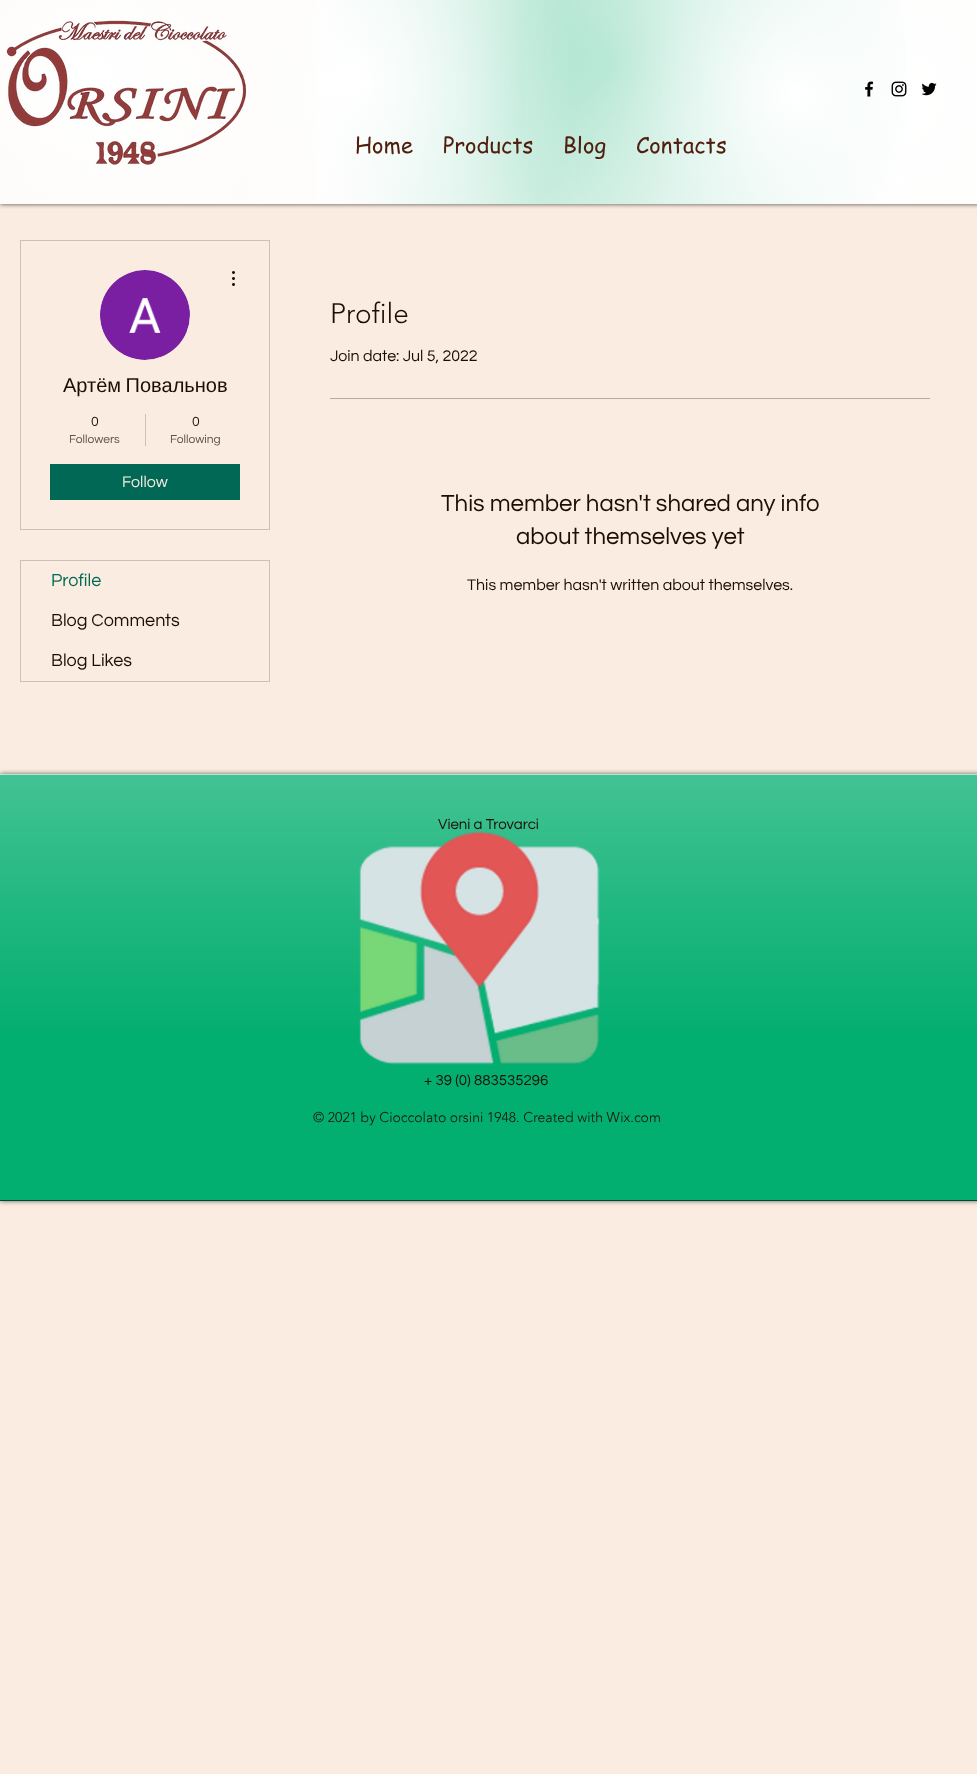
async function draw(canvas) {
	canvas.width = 977;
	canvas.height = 1774;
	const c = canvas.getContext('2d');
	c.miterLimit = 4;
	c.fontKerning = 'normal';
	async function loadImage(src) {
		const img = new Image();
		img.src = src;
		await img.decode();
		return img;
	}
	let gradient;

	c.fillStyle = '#faece1';
	c.fillRect(0, 0, 977, 1774);
	c.fillStyle = '#000000b3';
	c.filter = 'blur(2.5px)';
	c.beginPath();
	c.rect(0, 0, 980, 204);
	c.fill();
	c.filter = 'none';
	gradient = c.createRadialGradient(479, 101, 0, 479, 101, 511);
	gradient.addColorStop(0, '#fff');
	gradient.addColorStop(1, '#fcf8f4');
	c.fillStyle = gradient;
	c.fillRect(0, 0, 977, 204);
	gradient = c.createRadialGradient(893, 99, 0, 893, 99, 899);
	gradient.addColorStop(0, '#fff');
	gradient.addColorStop(0.7, '#ffffff00');
	c.fillStyle = gradient;
	c.fillRect(662, 0, 315, 204);
	gradient = c.createRadialGradient(611, 66, 0, 611, 66, 626);
	gradient.addColorStop(0, '#02ae7069');
	gradient.addColorStop(0.5, '#02ae7000');
	c.fillStyle = gradient;
	c.fillRect(315, 0, 591, 204);
	gradient = c.createRadialGradient(87, 82, 0, 87, 82, 902);
	gradient.addColorStop(0, '#fff');
	gradient.addColorStop(0.35, '#ffffff00');
	c.fillStyle = gradient;
	c.fillRect(0, 0, 368, 204);
	gradient = c.createRadialGradient(796, 95, 0, 796, 95, 804);
	gradient.addColorStop(0, '#fff');
	gradient.addColorStop(0.35, '#ffffff00');
	c.fillStyle = gradient;
	c.fillRect(525, 0, 381, 204);
	gradient = c.createRadialGradient(352, 82, 0, 352, 82, 640);
	gradient.addColorStop(0, '#fff');
	gradient.addColorStop(0.35, '#ffffff00');
	c.fillStyle = gradient;
	c.fillRect(315, 0, 254, 204);
	c.drawImage(await loadImage('img1.png'), 6, 20, 240, 145);
	c.drawImage(await loadImage('img2.png'), 865, 81, 9, 16);
	c.drawImage(await loadImage('img3.png'), 891, 81, 16, 16);
	c.drawImage(await loadImage('img4.png'), 921, 82, 16, 14);
	c.font = '22px "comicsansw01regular"';
	c.fillStyle = '#501e0e';
	for (const [text, x, y] of [
		['Home', 355, 153],
		['Products', 443, 153],
		['Blog', 563, 153],
		['Contacts', 636, 153],
	]) {
		c.fillText(text, x, y);
	}
	c.strokeStyle = '#cec0b5';
	c.strokeRect(20.5, 240.5, 249, 289);
	c.fillStyle = '#d8d8d8';
	c.beginPath();
	c.arc(145, 315, 45, 0, 2 * Math.PI);
	c.fill();
	c.drawImage(await loadImage('img5.png'), 100, 270, 90, 90);
	c.drawImage(await loadImage('img6.png'), 232, 271, 3, 15);
	c.wordSpacing = '-1px';
	c.font = '20px Liberation Sans';
	c.fillStyle = '#1d0e03';
	c.fillText('Артём Повальнов', 63, 392);
	c.wordSpacing = '0px';
	c.font = '14px Questrial';
	c.fillText('0', 91, 426);
	c.font = '12px Questrial';
	c.fillStyle = '#5f5146';
	c.fillText('Followers', 69, 443);
	c.fillStyle = '#cec0b5';
	c.fillRect(145, 414, 1, 32);
	c.font = '14px Questrial';
	c.fillStyle = '#1d0e03';
	c.fillText('0', 192, 426);
	c.font = '12px Questrial';
	c.fillStyle = '#5f5146';
	c.fillText('Following', 170, 443);
	c.fillStyle = '#016855';
	c.fillRect(50, 464, 190, 36);
	c.font = '16px Questrial';
	c.fillStyle = '#faece1';
	c.fillText('Follow', 122, 487);
	c.strokeRect(20.5, 560.5, 249, 121);
	c.font = '18px Questrial';
	c.fillStyle = '#016855';
	c.fillText('Profile', 51, 586);
	c.fillStyle = '#1d0e03';
	c.fillText('Blog Comments', 51, 626);
	c.fillText('Blog Likes', 51, 666);
	c.font = '300 28px "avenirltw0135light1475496"';
	c.fillText('Profile', 330, 323);
	c.font = '16px Questrial';
	c.fillText('Join date: Jul 5, 2022', 330, 361);
	c.fillStyle = '#b8a99e';
	c.fillRect(330, 398, 600, 1);
	c.font = '24px Questrial';
	c.fillStyle = '#1d0e03';
	c.fillText('This member hasn\'t shared any info', 441, 511);
	c.fillText('about themselves yet', 516, 544);
	c.font = '16px Questrial';
	c.fillText('This member hasn\'t written about themselves.', 467, 590);
	c.fillStyle = '#00000099';
	c.filter = 'blur(2.5px)';
	c.beginPath();
	c.rect(0, 774, 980, 427);
	c.fill();
	c.filter = 'none';
	c.fillStyle = '#02ae70';
	c.fillRect(0, 775, 977, 425);
	c.drawImage(await loadImage('img7.png'), 0, 775, 977, 253);
	c.fillStyle = '#01462d';
	c.fillRect(0, 1200, 977, 1);
	c.fillStyle = '#b4e7d5';
	c.fillRect(0, 774, 977, 1);
	c.font = '15px Questrial';
	c.fillStyle = '#1d0e03';
	c.fillText('Vieni a Trovarci', 438, 829);
	c.drawImage(await loadImage('img8.png'), 359, 831, 241, 234);
	c.fillText('+ 39 (0) 883535296', 424, 1085);
	c.font = '300 14px "avenirltw0135light1475496"';
	c.fillText('© 2021 by Cioccolato orsini 1948. Created with Wix.com', 313, 1122);
}

draw(document.querySelector('canvas'));
